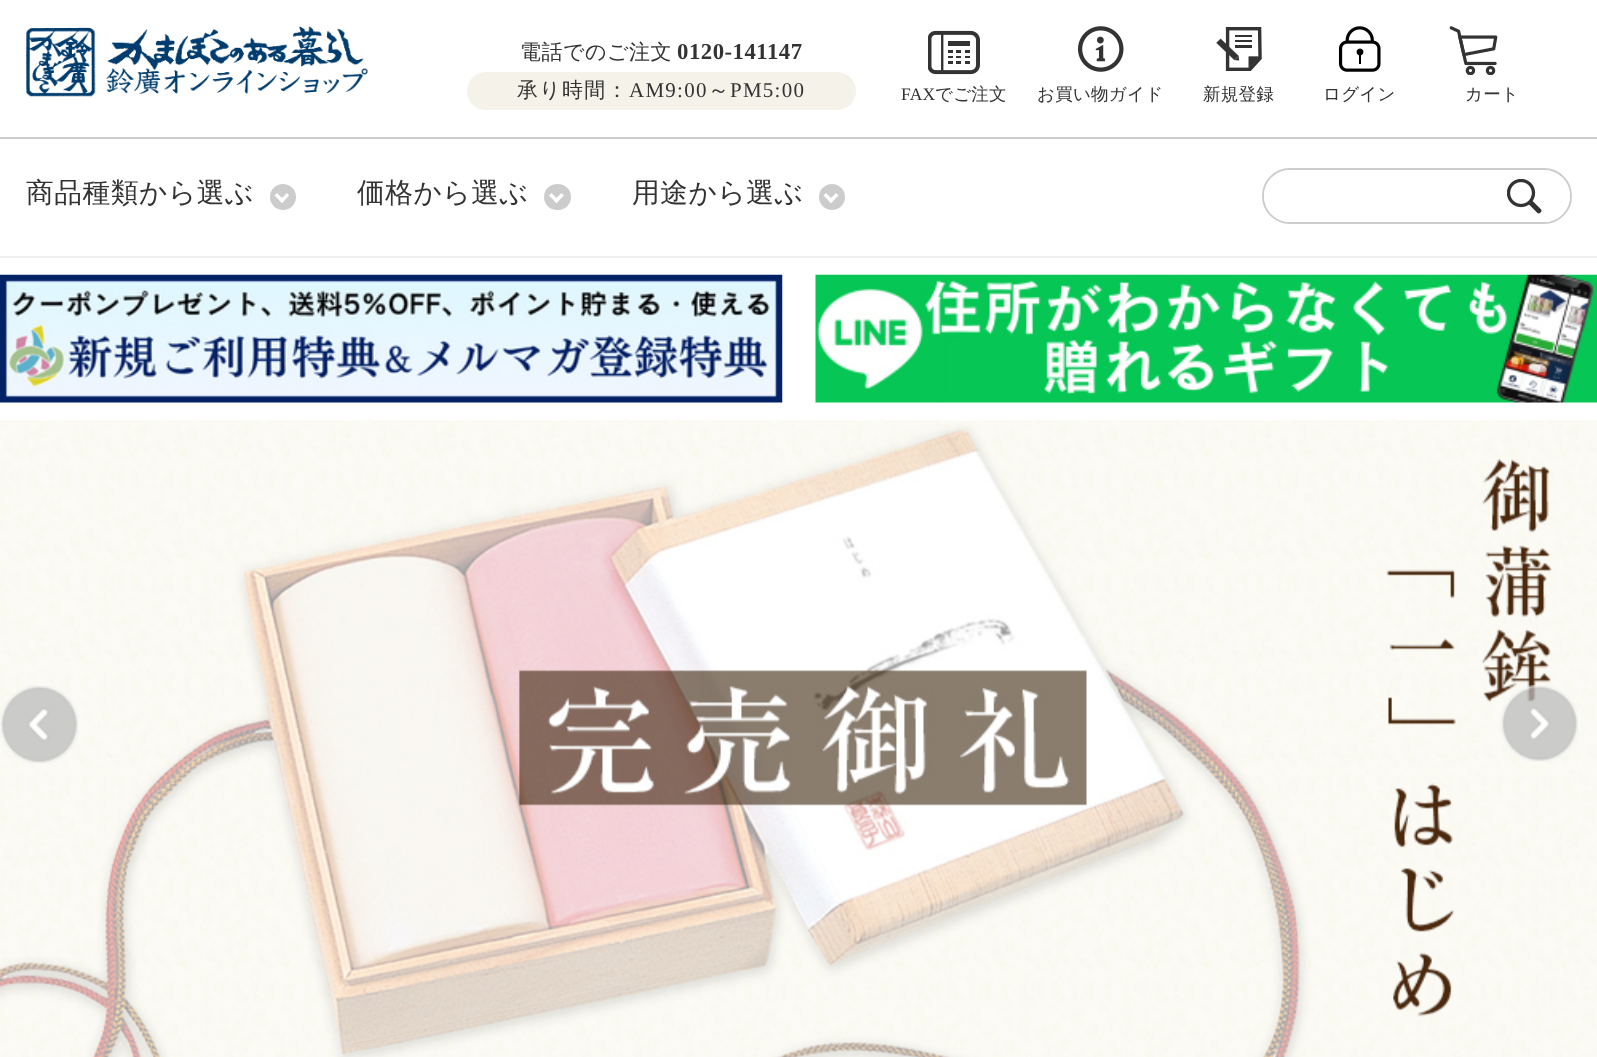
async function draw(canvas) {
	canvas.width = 1597;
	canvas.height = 1057;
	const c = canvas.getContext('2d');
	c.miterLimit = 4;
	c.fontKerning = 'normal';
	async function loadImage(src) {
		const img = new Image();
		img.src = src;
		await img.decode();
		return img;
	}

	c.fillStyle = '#fff';
	c.fillRect(0, 0, 1597, 1057);
	c.drawImage(await loadImage('img1.png'), 26, 26, 342, 71);
	c.letterSpacing = '0.5px';
	c.font = '500 21px WenQuanYi Zen Hei';
	c.fillStyle = '#333';
	c.fillText('電話でのご注文', 520, 59);
	c.font = 'bold 22.75px Liberation Serif';
	c.fillText('0120-141147', 677, 59);
	c.fillStyle = '#f5f2e9';
	c.beginPath();
	c.roundRect(467, 72, 389, 38, 19);
	c.fill();
	c.letterSpacing = '1.25px';
	c.font = '500 21px WenQuanYi Zen Hei';
	c.fillStyle = '#333';
	c.fillText('承り時間：', 517, 97);
	c.font = '21px Liberation Serif';
	c.fillText('AM9:00', 629, 97);
	c.font = '500 21px WenQuanYi Zen Hei';
	c.fillText('～', 708, 97);
	c.font = '21px Liberation Serif';
	c.fillText('PM5:00', 730, 97);
	c.drawImage(await loadImage('img2.png'), 928, 30, 52, 45);
	c.letterSpacing = '0.25px';
	c.font = '17.5px Liberation Serif';
	c.fillText('FAX', 901, 100);
	c.font = '500 17.5px WenQuanYi Zen Hei';
	c.fillText('でご注文', 935, 100);
	c.drawImage(await loadImage('img3.png'), 1078, 26, 46, 46);
	c.fillText('お買い物ガイド', 1037, 100);
	c.drawImage(await loadImage('img4.png'), 1216, 27, 46, 44);
	c.fillText('新規登録', 1203, 100);
	c.drawImage(await loadImage('img5.png'), 1338, 26, 43, 46);
	c.fillText('ログイン', 1323, 100);
	c.drawImage(await loadImage('img6.png'), 1449, 26, 49, 49);
	c.fillText('カート', 1465, 100);
	c.fillStyle = '#ccc';
	c.fillRect(0, 137, 1597, 2);
	c.fillStyle = '#efefef';
	c.fillRect(0, 256, 1597, 2);
	c.letterSpacing = '0.5px';
	c.font = '500 27.75px WenQuanYi Zen Hei';
	c.fillStyle = '#333';
	c.fillText('商品種類から選ぶ', 26, 202);
	c.fillStyle = '#ccc';
	c.beginPath();
	c.arc(283, 197, 13, 0, 2 * Math.PI);
	c.fill();
	c.fillStyle = '#fff';
	c.beginPath();
	c.moveTo(289, 195.5);
	c.lineTo(282, 203);
	c.lineTo(279.5, 200.5);
	c.lineTo(287, 193);
	c.closePath();
	c.fill();
	c.beginPath();
	c.moveTo(284.5, 200.5);
	c.lineTo(282, 203);
	c.lineTo(274.5, 195.5);
	c.lineTo(277, 193);
	c.closePath();
	c.fill();
	c.fillStyle = '#333';
	c.fillText('価格から選ぶ', 357, 202);
	c.fillStyle = '#ccc';
	c.beginPath();
	c.roundRect(544, 184, 27, 26, 13);
	c.fill();
	c.fillStyle = '#fff';
	c.beginPath();
	c.moveTo(564, 195.5);
	c.lineTo(556.5, 203);
	c.lineTo(554, 200.5);
	c.lineTo(561.5, 193);
	c.closePath();
	c.fill();
	c.beginPath();
	c.moveTo(559, 200.5);
	c.lineTo(556.5, 203);
	c.lineTo(549, 195.5);
	c.lineTo(551.5, 193);
	c.closePath();
	c.fill();
	c.fillStyle = '#333';
	c.fillText('用途から選ぶ', 632, 202);
	c.fillStyle = '#ccc';
	c.beginPath();
	c.arc(832, 197, 13, 0, 2 * Math.PI);
	c.fill();
	c.fillStyle = '#fff';
	c.beginPath();
	c.moveTo(838.5, 195.5);
	c.lineTo(831, 203);
	c.lineTo(828.5, 200.5);
	c.lineTo(836, 193);
	c.closePath();
	c.fill();
	c.beginPath();
	c.moveTo(833.5, 200.5);
	c.lineTo(831, 203);
	c.lineTo(823.5, 195.5);
	c.lineTo(826, 193);
	c.closePath();
	c.fill();
	c.beginPath();
	c.roundRect(1263, 169, 308, 54, 27);
	c.strokeStyle = '#ccc';
	c.lineWidth = 2;
	c.stroke();
	c.beginPath();
	c.roundRect(1264, 170, 306, 52, 26);
	c.fill();
	c.drawImage(await loadImage('img7.png'), 1507, 179, 35, 35);
	c.drawImage(await loadImage('img8.png'), 0, 274, 783, 129);
	c.drawImage(await loadImage('img9.png'), 815, 274, 782, 129);
	c.drawImage(await loadImage('img10.png'), 0, 420, 1, 1);
	c.drawImage(await loadImage('img11.png'), 0, 420, 1597, 637);
	c.drawImage(await loadImage('img12.png'), 0, 685, 79, 79);
	c.drawImage(await loadImage('img13.png'), 1500, 685, 78, 77);
}

draw(document.querySelector('canvas'));
